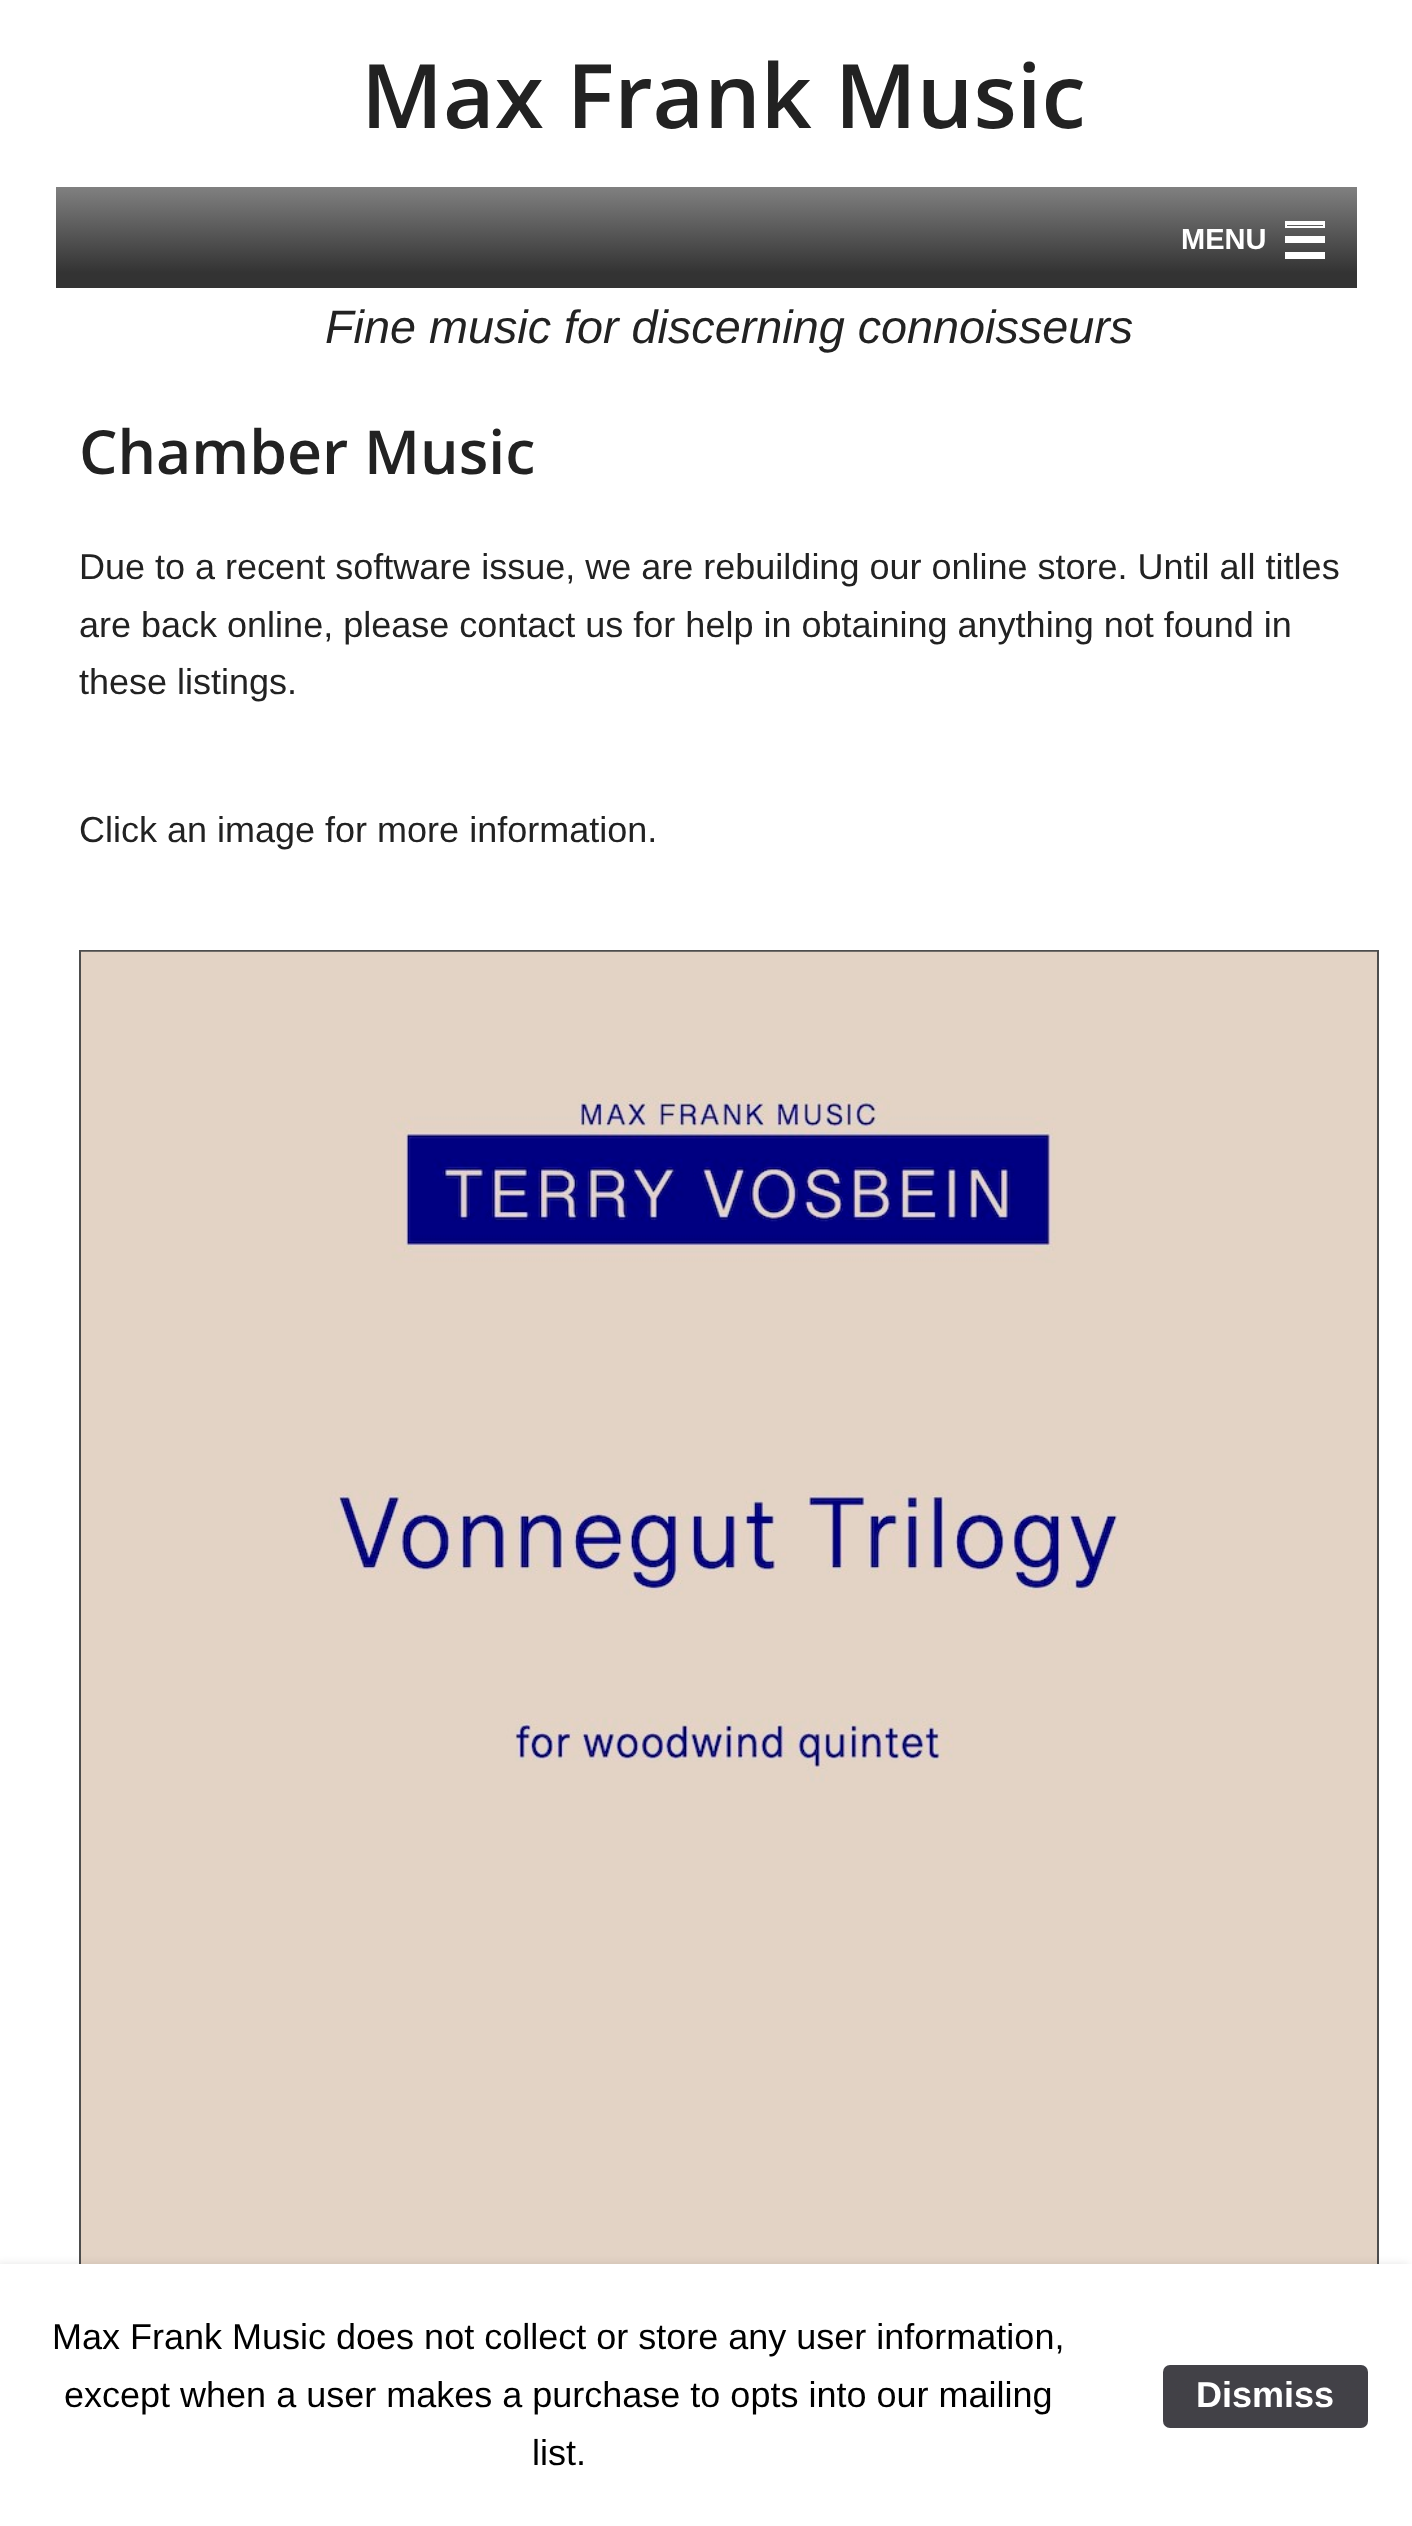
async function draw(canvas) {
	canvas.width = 1412;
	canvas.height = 2526;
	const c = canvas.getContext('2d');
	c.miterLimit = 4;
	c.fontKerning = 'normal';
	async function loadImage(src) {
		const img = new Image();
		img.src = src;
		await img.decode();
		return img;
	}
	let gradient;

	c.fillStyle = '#fff';
	c.fillRect(0, 0, 1412, 2526);
	c.font = '600 89px Open Sans';
	c.fillStyle = '#222';
	c.fillText('Max Frank Music', 361, 128);
	gradient = c.createLinearGradient(707, 187, 707, 288);
	gradient.addColorStop(0, '#808080');
	gradient.addColorStop(0.85, '#333');
	c.fillStyle = gradient;
	c.fillRect(56, 187, 1301, 101);
	c.font = 'bold 29px Liberation Sans';
	c.fillStyle = '#fff';
	c.fillText('MENU', 1181, 249);
	c.fillRect(1285, 252, 40, 7);
	c.fillRect(1285, 236, 40, 7);
	c.strokeStyle = '#fff';
	c.lineWidth = 2;
	c.strokeRect(1286, 222, 38, 5);
	c.fillRect(1287, 223, 36, 2);
	c.font = 'italic 46.75px Liberation Sans';
	c.fillStyle = '#222';
	c.fillText('Fine music for discerning connoisseurs', 325, 343);
	c.font = '600 60.75px Open Sans';
	c.fillText('Chamber Music', 79, 474);
	c.font = '36px Liberation Sans';
	for (const [text, x, y] of [
		['Due to a recent software issue, we are rebuilding our online store. Until all titles', 79, 579],
		['are back online, please contact us for help in obtaining anything not found in', 79, 637],
		['these listings.', 79, 694],
		['Click an image for more information.', 79, 842],
	]) {
		c.fillText(text, x, y);
	}
	c.strokeStyle = '#4d4d4d';
	c.strokeRect(80, 951, 1298, 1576);
	c.drawImage(await loadImage('img1.png'), 81, 951, 1296, 1313);
	c.fillStyle = '#0000001a';
	c.filter = 'blur(4.5px)';
	c.beginPath();
	c.rect(-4, 2264, 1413, 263);
	c.fill();
	c.filter = 'none';
	c.fillStyle = '#fff';
	c.fillRect(0, 2264, 1412, 262);
	c.fillStyle = '#000';
	for (const [text, x, y] of [
		['Max Frank Music does not collect or store any user information,', 52, 2349],
		['except when a user makes a purchase to opts into our mailing', 64, 2407],
		['list.', 532, 2465],
	]) {
		c.fillText(text, x, y);
	}
	c.fillStyle = '#424147';
	c.beginPath();
	c.roundRect(1163, 2365, 205, 63, 7);
	c.fill();
	c.font = 'bold 36px Liberation Sans';
	c.fillStyle = '#fff';
	c.fillText('Dismiss', 1196, 2407);
}

draw(document.querySelector('canvas'));
